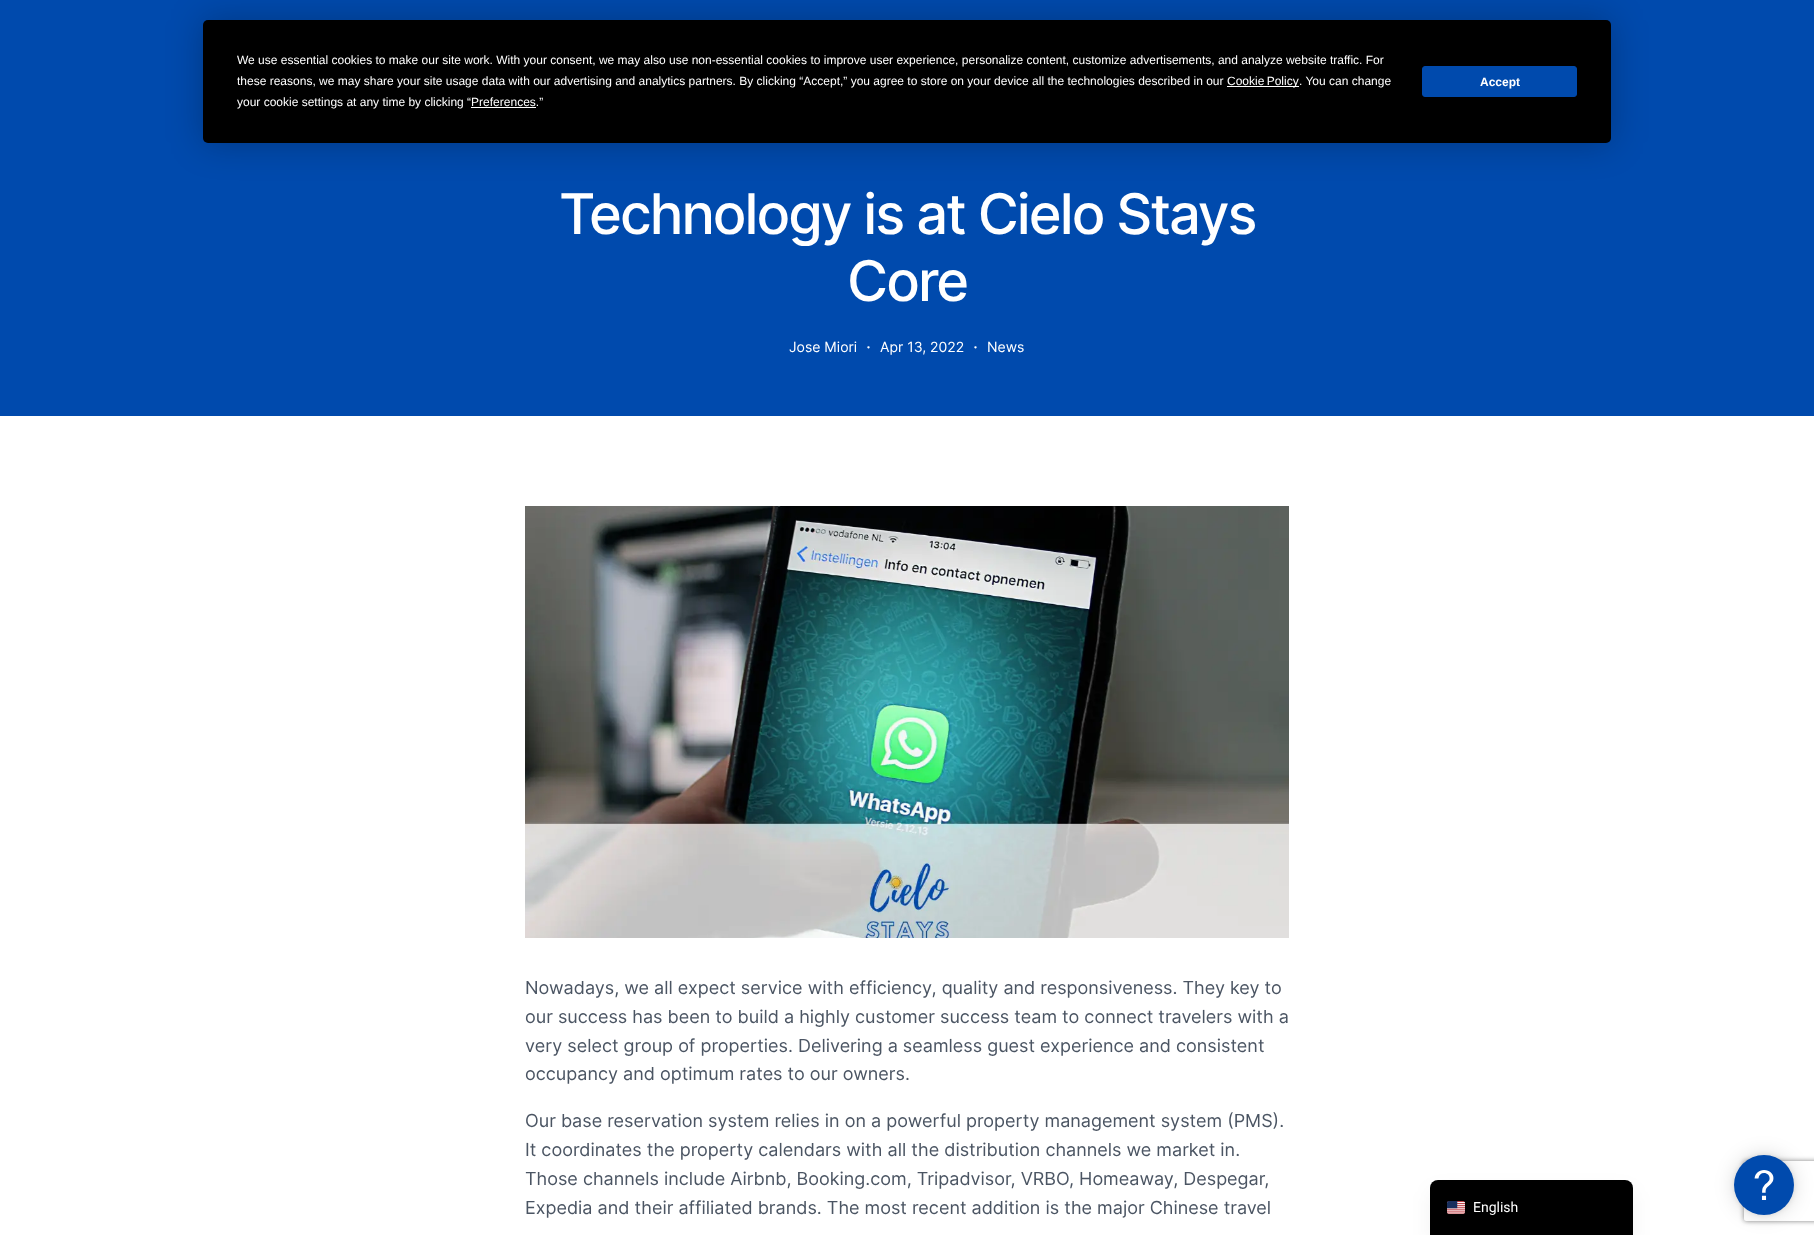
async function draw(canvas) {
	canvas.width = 1814;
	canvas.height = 1235;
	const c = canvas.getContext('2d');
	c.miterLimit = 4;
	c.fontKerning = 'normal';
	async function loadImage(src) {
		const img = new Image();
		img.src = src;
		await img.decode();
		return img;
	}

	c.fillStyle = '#fff';
	c.fillRect(0, 0, 1814, 1235);
	c.fillStyle = '#004aad';
	c.fillRect(0, 0, 1814, 416);
	c.fillStyle = '#00000040';
	c.filter = 'blur(17.5px)';
	c.beginPath();
	c.roundRect(203, 20, 1408, 123, 5);
	c.fill();
	c.filter = 'none';
	c.fillStyle = '#000';
	c.beginPath();
	c.roundRect(203, 20, 1408, 123, 5);
	c.fill();
	c.font = '12px Liberation Sans';
	c.fillStyle = '#fff';
	c.fillText('We use essential cookies to make our site work. With your consent, we may also use non-essential cookies to improve user experience, personalize content, customize advertisements, and analyze website traffic. For', 237, 64);
	c.fillText('these reasons, we may share your site usage data with our advertising and analytics partners. By clicking “Accept,” you agree to store on your device all the technologies described in our', 237, 85);
	c.fillRect(1227, 86, 72, 1);
	c.wordSpacing = '-1px';
	c.fillText('Cookie Policy', 1227, 85);
	c.wordSpacing = '0px';
	c.fillText('. You can change', 1299, 85);
	c.fillText('your cookie settings at any time by clicking “Preferences.”', 237, 106);
	c.fillRect(471, 107, 65, 1);
	c.fillStyle = '#004aad';
	c.beginPath();
	c.roundRect(1422.5, 66.5, 154, 30, 2.5);
	c.fill();
	c.strokeStyle = '#004aad';
	c.stroke();
	c.font = 'bold 12px Liberation Sans';
	c.fillStyle = '#fff';
	c.fillText('Accept', 1480, 86);
	c.letterSpacing = '-2px';
	c.font = '500 56px Inter';
	c.fillText('Technology is at Cielo Stays', 559, 234);
	c.fillText('Core', 847, 301);
	c.letterSpacing = '0px';
	c.font = '14px Inter';
	c.fillText('Jose Miori', 789, 352);
	c.font = '18px Inter';
	c.fillText('·', 866, 353);
	c.font = '14px Inter';
	c.fillText('Apr 13, 2022', 880, 352);
	c.font = '18px Inter';
	c.fillText('·', 973, 353);
	c.font = '14px Inter';
	c.fillText('News', 987, 352);
	c.drawImage(await loadImage('img1.png'), 525, 506, 764, 432);
	c.font = '18px Inter';
	c.fillStyle = '#4b5563';
	for (const [text, x, y] of [
		['Nowadays, we all expect service with efficiency, quality and responsiveness. They key to', 525, 994],
		['our success has been to build a highly customer success team to connect travelers with a', 525, 1023],
		['very select group of properties. Delivering a seamless guest experience and consistent', 525, 1052],
		['occupancy and optimum rates to our owners.', 525, 1080],
		['Our base reservation system relies in on a powerful property management system (PMS).', 525, 1127],
		['It coordinates the property calendars with all the distribution channels we market in.', 525, 1156],
		['Those channels include Airbnb, Booking.com, Tripadvisor, VRBO, Homeaway, Despegar,', 525, 1185],
		['Expedia and their affiliated brands. The most recent addition is the major Chinese travel', 525, 1214],
	]) {
		c.fillText(text, x, y);
	}
	c.fillStyle = '#00000026';
	c.filter = 'blur(10px)';
	c.beginPath();
	c.roundRect(1734, 1155, 60, 60, 30);
	c.fill();
	c.filter = 'none';
	c.fillStyle = '#0000001a';
	c.filter = 'blur(2.5px)';
	c.beginPath();
	c.roundRect(1734, 1155, 60, 60, 30);
	c.fill();
	c.filter = 'none';
	c.save();
	c.beginPath();
	c.moveTo(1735, 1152);
	c.lineTo(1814, 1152);
	c.lineTo(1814, 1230);
	c.lineTo(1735, 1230);
	c.closePath();
	c.moveTo(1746, 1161);
	c.lineTo(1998, 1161);
	c.bezierCurveTo(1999, 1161, 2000, 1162, 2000, 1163);
	c.lineTo(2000, 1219);
	c.bezierCurveTo(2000, 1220, 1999, 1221, 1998, 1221);
	c.lineTo(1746, 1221);
	c.bezierCurveTo(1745, 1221, 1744, 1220, 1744, 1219);
	c.lineTo(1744, 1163);
	c.bezierCurveTo(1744, 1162, 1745, 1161, 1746, 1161);
	c.closePath();
	c.clip('evenodd');
	c.fillStyle = '#808080';
	c.filter = 'blur(2.5px)';
	c.beginPath();
	c.roundRect(1744, 1161, 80, 60, 2);
	c.fill();
	c.filter = 'none';
	c.restore();
	c.drawImage(await loadImage('img2.png'), 1734, 1155, 60, 60);
	c.fillStyle = '#0000000d';
	c.filter = 'blur(10px)';
	c.beginPath();
	c.roundRect(1430, 1190, 203, 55, 8);
	c.fill();
	c.filter = 'none';
	c.fillStyle = '#000';
	c.beginPath();
	c.roundRect(1430, 1180, 203, 55, [8, 8, 0, 0]);
	c.fill();
	c.drawImage(await loadImage('img3.png'), 1447, 1201, 18, 13);
	c.font = '14px Roboto';
	c.fillStyle = '#fff';
	c.fillText('English', 1473, 1212);
}

draw(document.querySelector('canvas'));
